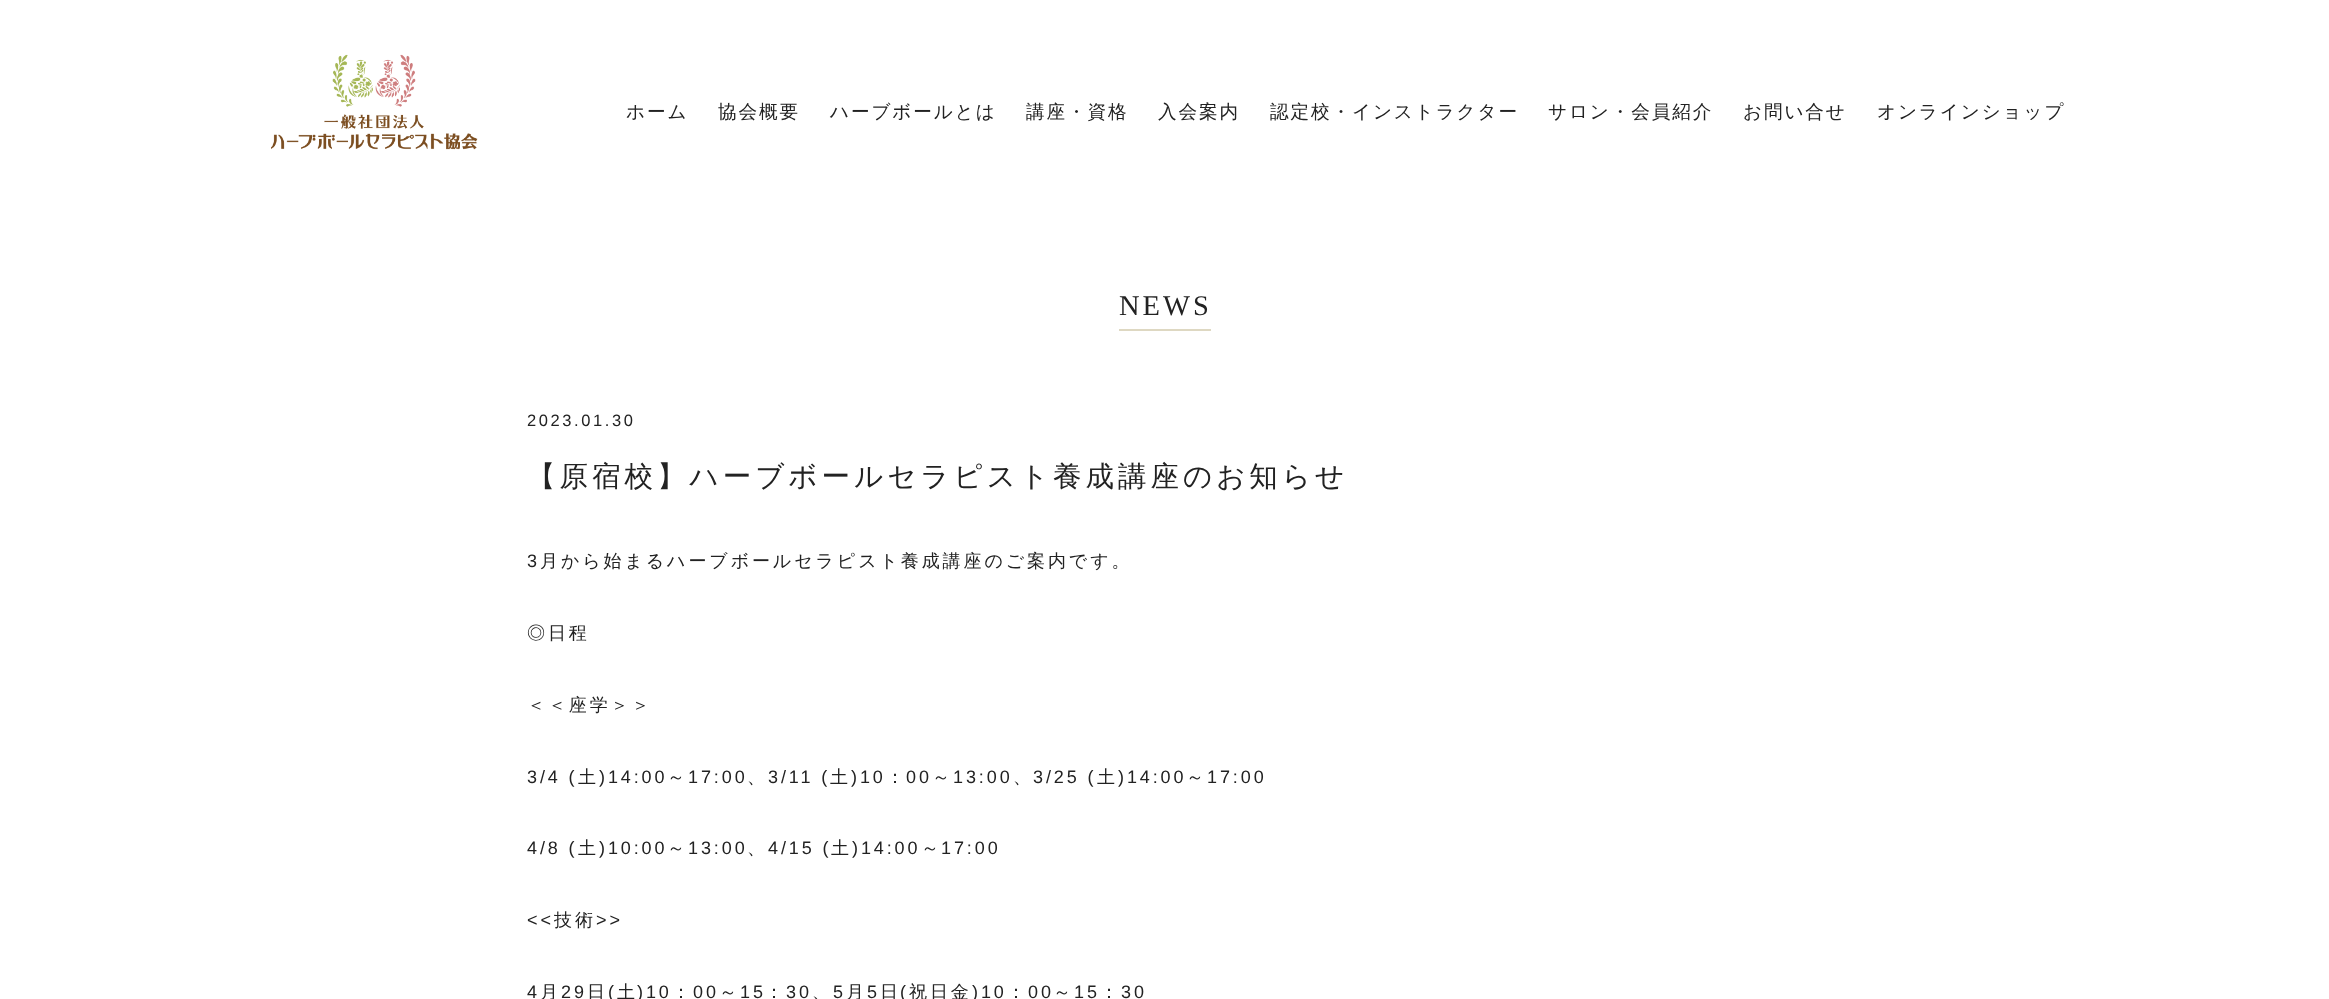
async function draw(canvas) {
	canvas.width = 2329;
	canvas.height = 999;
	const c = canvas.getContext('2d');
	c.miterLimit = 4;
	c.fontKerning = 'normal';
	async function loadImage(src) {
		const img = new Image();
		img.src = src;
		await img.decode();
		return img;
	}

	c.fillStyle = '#fff';
	c.fillRect(0, 0, 2329, 999);
	c.drawImage(await loadImage('img1.png'), 271, 54, 207, 96);
	c.letterSpacing = '1.9px';
	c.font = '500 18.6px WenQuanYi Zen Hei';
	c.fillStyle = '#222';
	for (const [text, x, y] of [
		['ホーム', 626, 118],
		['協会概要', 718, 118],
		['ハーブボールとは', 830, 118],
		['講座・資格', 1026, 118],
		['入会案内', 1158, 118],
		['認定校・インストラクター', 1270, 118],
		['サロン・会員紹介', 1548, 118],
		['お問い合せ', 1743, 118],
		['オンラインショップ', 1877, 118],
	]) {
		c.fillText(text, x, y);
	}
	c.fillStyle = '#ded8c2';
	c.fillRect(1119, 329, 92, 2);
	c.letterSpacing = '3px';
	c.font = '28.5px Liberation Serif';
	c.fillStyle = '#222';
	c.fillText('NEWS', 1119, 315);
	c.letterSpacing = '2.6px';
	c.font = '16.5px Liberation Sans';
	c.fillText('2023.01.30', 527, 426);
	c.letterSpacing = '4px';
	c.font = '500 28.5px WenQuanYi Zen Hei';
	c.fillText('【原宿校】ハーブボールセラピスト養成講座のお知らせ', 527, 486);
	c.letterSpacing = '2.9px';
	c.font = '18px Liberation Sans';
	c.fillText('3', 527, 567);
	c.font = '500 18px WenQuanYi Zen Hei';
	for (const [text, x, y] of [
		['月から始まるハーブボールセラピスト養成講座のご案内です。', 540, 567],
		['◎日程', 527, 639],
		['＜＜座学＞＞', 527, 711],
	]) {
		c.fillText(text, x, y);
	}
	c.font = '18px Liberation Sans';
	c.fillText('3/4 (', 527, 783);
	c.font = '500 18px WenQuanYi Zen Hei';
	c.fillText('土', 578, 783);
	c.font = '18px Liberation Sans';
	c.fillText(')14:00', 599, 783);
	c.font = '500 18px WenQuanYi Zen Hei';
	c.fillText('～', 667, 783);
	c.font = '18px Liberation Sans';
	c.fillText('17:00', 688, 783);
	c.fillText('3/11 (', 768, 783);
	c.font = '500 18px WenQuanYi Zen Hei';
	c.fillText('土', 830, 783);
	c.font = '18px Liberation Sans';
	c.fillText(')10', 851, 783);
	c.font = '500 18px WenQuanYi Zen Hei';
	c.fillText('：', 886, 783);
	c.font = '18px Liberation Sans';
	c.fillText('00', 906, 783);
	c.font = '500 18px WenQuanYi Zen Hei';
	c.fillText('～', 932, 783);
	c.font = '18px Liberation Sans';
	c.fillText('13:00', 953, 783);
	c.fillText('3/25 (', 1033, 783);
	c.font = '500 18px WenQuanYi Zen Hei';
	c.fillText('土', 1097, 783);
	c.font = '18px Liberation Sans';
	c.fillText(')14:00', 1118, 783);
	c.font = '500 18px WenQuanYi Zen Hei';
	c.fillText('～', 1186, 783);
	c.font = '18px Liberation Sans';
	c.fillText('17:00', 1207, 783);
	c.font = '500 18px WenQuanYi Zen Hei';
	c.fillText('、', 747, 783);
	c.fillText('、', 1013, 783);
	c.font = '18px Liberation Sans';
	c.fillText('4/8 (', 527, 854);
	c.font = '500 18px WenQuanYi Zen Hei';
	c.fillText('土', 578, 854);
	c.font = '18px Liberation Sans';
	c.fillText(')10:00', 599, 854);
	c.font = '500 18px WenQuanYi Zen Hei';
	c.fillText('～', 667, 854);
	c.font = '18px Liberation Sans';
	c.fillText('13:00', 688, 854);
	c.fillText('4/15 (', 768, 854);
	c.font = '500 18px WenQuanYi Zen Hei';
	c.fillText('土', 831, 854);
	c.font = '18px Liberation Sans';
	c.fillText(')14:00', 852, 854);
	c.font = '500 18px WenQuanYi Zen Hei';
	c.fillText('～', 921, 854);
	c.font = '18px Liberation Sans';
	c.fillText('17:00', 941, 854);
	c.font = '500 18px WenQuanYi Zen Hei';
	c.fillText('、', 747, 854);
	c.font = '18px Liberation Sans';
	c.fillText('<<', 527, 926);
	c.font = '500 18px WenQuanYi Zen Hei';
	c.fillText('技術', 554, 926);
	c.font = '18px Liberation Sans';
	c.fillText('>>', 596, 926);
	c.fillText('4', 527, 998);
	c.font = '500 18px WenQuanYi Zen Hei';
	c.fillText('月', 540, 998);
	c.font = '18px Liberation Sans';
	c.fillText('29', 561, 998);
	c.font = '500 18px WenQuanYi Zen Hei';
	c.fillText('日', 587, 998);
	c.font = '18px Liberation Sans';
	c.fillText('(', 608, 998);
	c.font = '500 18px WenQuanYi Zen Hei';
	c.fillText('土', 617, 998);
	c.font = '18px Liberation Sans';
	c.fillText(')10', 637, 998);
	c.font = '500 18px WenQuanYi Zen Hei';
	c.fillText('：', 672, 998);
	c.font = '18px Liberation Sans';
	c.fillText('00', 693, 998);
	c.font = '500 18px WenQuanYi Zen Hei';
	c.fillText('～', 719, 998);
	c.font = '18px Liberation Sans';
	c.fillText('15', 740, 998);
	c.font = '500 18px WenQuanYi Zen Hei';
	c.fillText('：', 765, 998);
	c.font = '18px Liberation Sans';
	c.fillText('30', 786, 998);
	c.fillText('5', 833, 998);
	c.font = '500 18px WenQuanYi Zen Hei';
	c.fillText('月', 846, 998);
	c.font = '18px Liberation Sans';
	c.fillText('5', 867, 998);
	c.font = '500 18px WenQuanYi Zen Hei';
	c.fillText('日', 880, 998);
	c.font = '18px Liberation Sans';
	c.fillText('(', 900, 998);
	c.font = '500 18px WenQuanYi Zen Hei';
	c.fillText('祝日金', 909, 998);
	c.font = '18px Liberation Sans';
	c.fillText(')10', 972, 998);
	c.font = '500 18px WenQuanYi Zen Hei';
	c.fillText('：', 1007, 998);
	c.font = '18px Liberation Sans';
	c.fillText('00', 1028, 998);
	c.font = '500 18px WenQuanYi Zen Hei';
	c.fillText('～', 1053, 998);
	c.font = '18px Liberation Sans';
	c.fillText('15', 1074, 998);
	c.font = '500 18px WenQuanYi Zen Hei';
	c.fillText('：', 1100, 998);
	c.font = '18px Liberation Sans';
	c.fillText('30', 1121, 998);
	c.font = '500 18px WenQuanYi Zen Hei';
	c.fillText('、', 812, 998);
}

draw(document.querySelector('canvas'));
